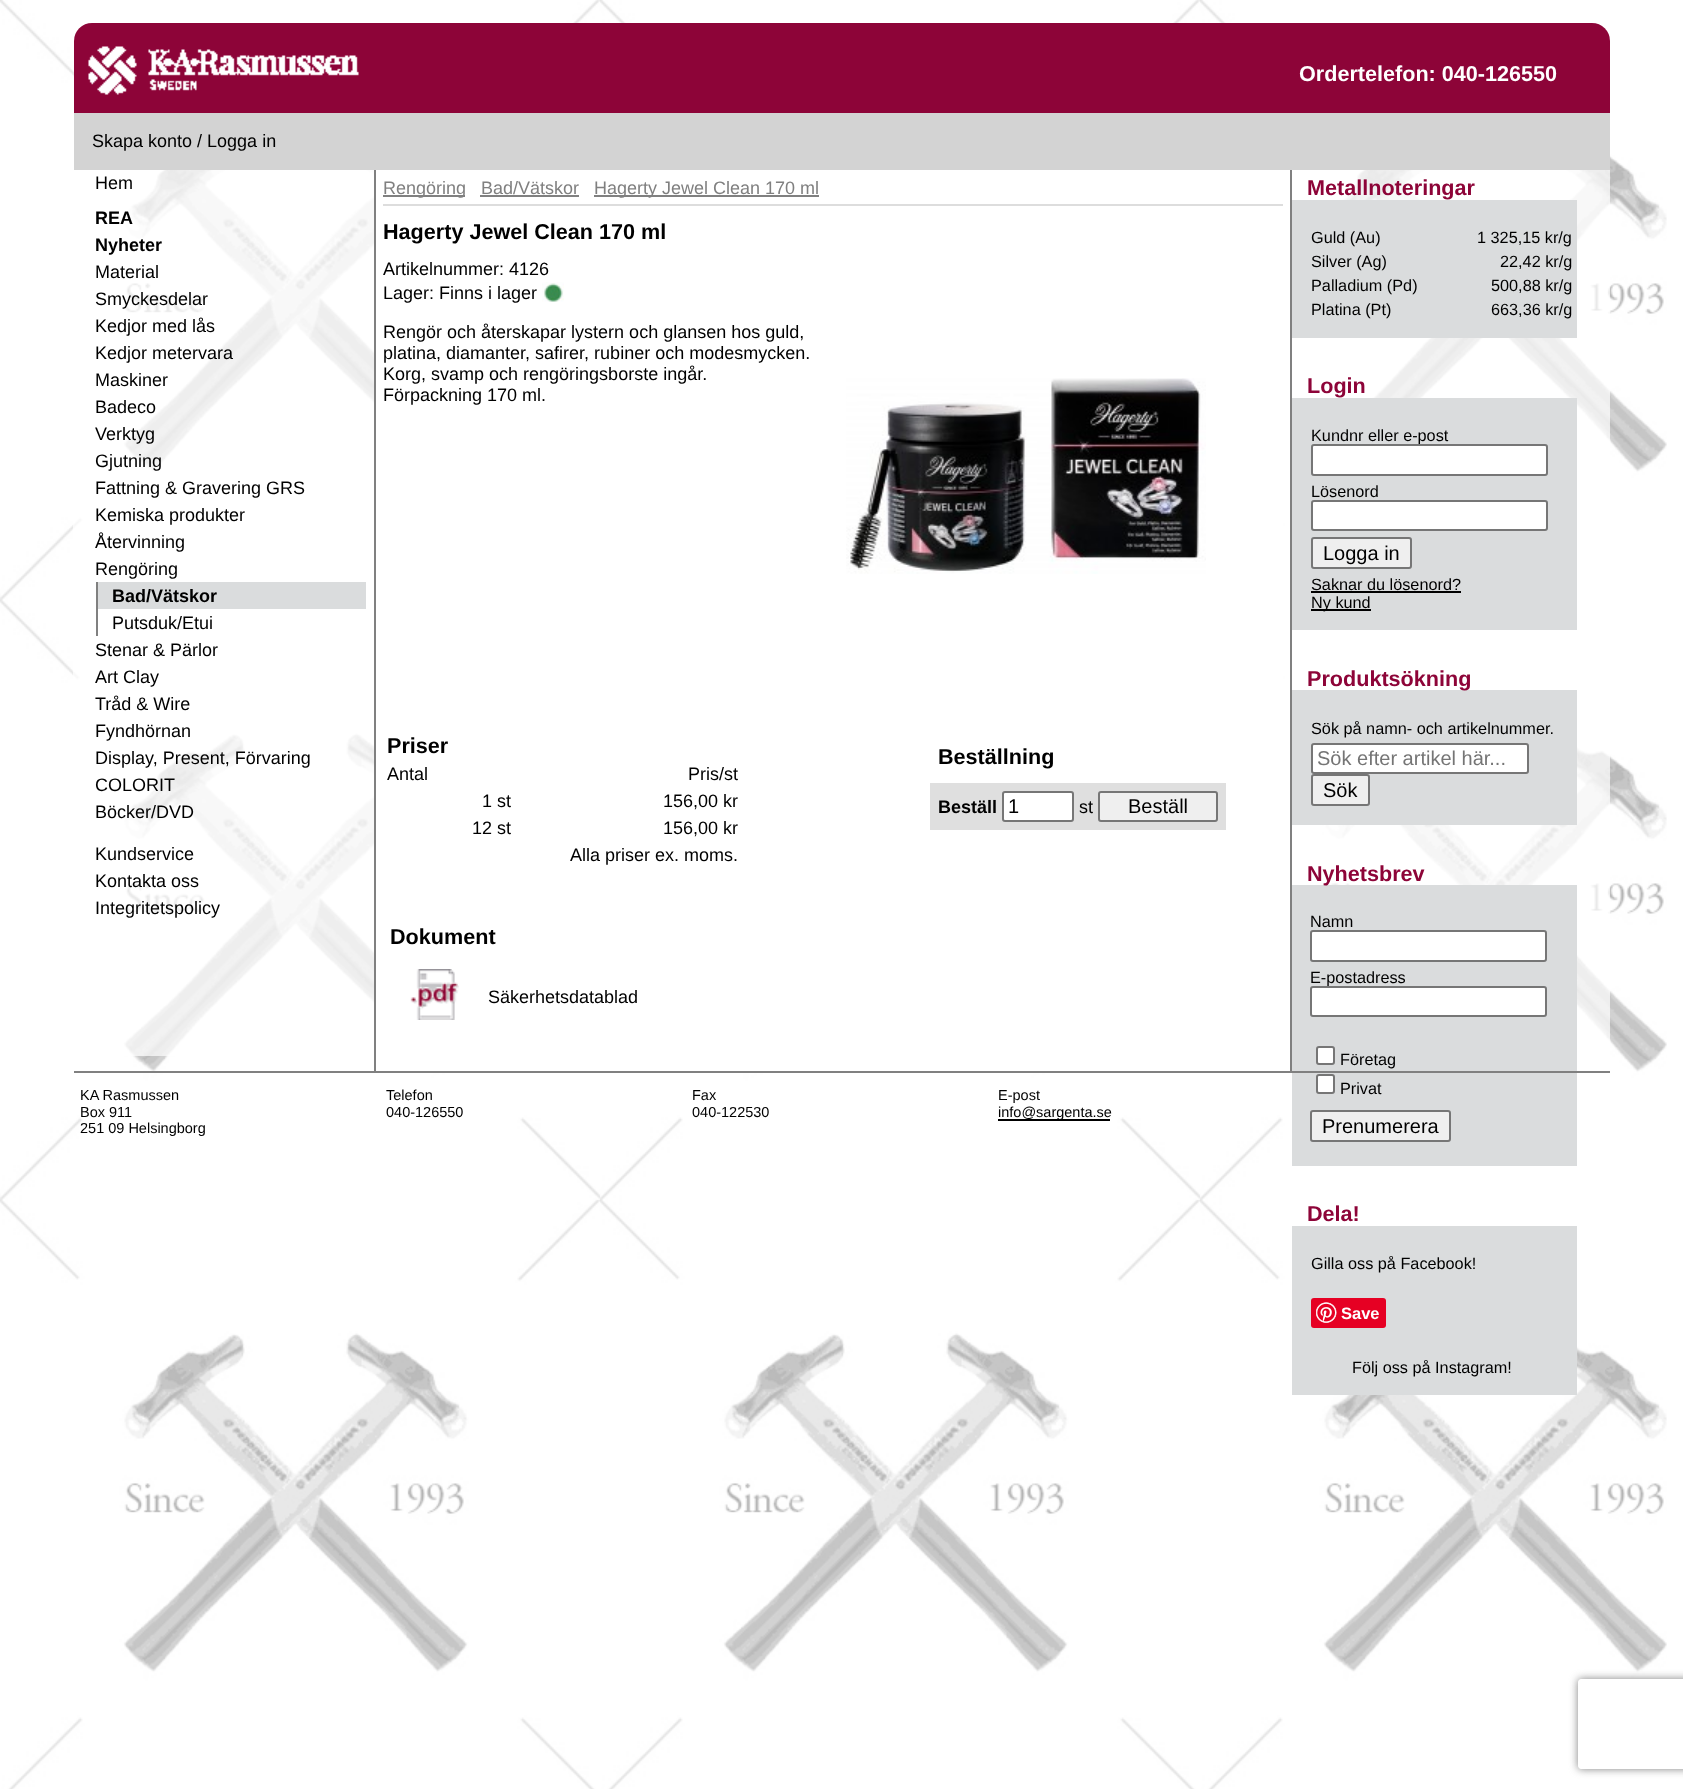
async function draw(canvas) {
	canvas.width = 1683;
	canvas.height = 1789;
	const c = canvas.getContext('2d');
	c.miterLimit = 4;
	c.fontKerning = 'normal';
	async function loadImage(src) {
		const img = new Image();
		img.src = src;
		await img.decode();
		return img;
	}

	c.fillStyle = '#fff';
	c.fillRect(0, 0, 1683, 1789);
	c.drawImage(await loadImage('img1.png'), 0, 0, 1667, 1789);
	c.fillStyle = '#8d0438';
	c.beginPath();
	c.roundRect(74, 23, 1536, 90, [18, 18, 0, 0]);
	c.fill();
	c.drawImage(await loadImage('img2.png'), 88, 46, 271, 49);
	c.font = 'bold 21.6px Liberation Sans';
	c.fillStyle = '#fff';
	c.fillText('Ordertelefon: 040-126550', 1299, 81);
	c.fillStyle = '#ffffffb3';
	c.fillRect(73, 169, 301, 887);
	c.fillStyle = '#d3d3d3';
	c.fillRect(74, 113, 1536, 57);
	c.font = '18px Liberation Sans';
	c.fillStyle = '#000';
	c.fillText('Skapa konto / Logga in', 92, 147);
	c.fillText('Hem', 95, 189);
	c.font = 'bold 18px Liberation Sans';
	c.fillText('REA', 95, 224);
	c.fillText('Nyheter', 95, 251);
	c.font = '18px Liberation Sans';
	for (const [text, x, y] of [
		['Material', 95, 278],
		['Smyckesdelar', 95, 305],
		['Kedjor med lås', 95, 332],
		['Kedjor metervara', 95, 359],
		['Maskiner', 95, 386],
		['Badeco', 95, 413],
		['Verktyg', 95, 440],
		['Gjutning', 95, 467],
		['Fattning & Gravering GRS', 95, 494],
		['Kemiska produkter', 95, 521],
		['Återvinning', 95, 548],
		['Rengöring', 95, 575],
	]) {
		c.fillText(text, x, y);
	}
	c.fillStyle = '#808080';
	c.fillRect(96, 582, 2, 54);
	c.fillStyle = '#dadcdd';
	c.fillRect(98, 582, 268, 27);
	c.font = 'bold 18px Liberation Sans';
	c.fillStyle = '#000';
	c.fillText('Bad/Vätskor', 112, 602);
	c.font = '18px Liberation Sans';
	for (const [text, x, y] of [
		['Putsduk/Etui', 112, 629],
		['Stenar & Pärlor', 95, 656],
		['Art Clay', 95, 683],
		['Tråd & Wire', 95, 710],
		['Fyndhörnan', 95, 737],
		['Display, Present, Förvaring', 95, 764],
		['COLORIT', 95, 791],
		['Böcker/DVD', 95, 818],
		['Kundservice', 95, 860],
		['Kontakta oss', 95, 887],
		['Integritetspolicy', 95, 914],
	]) {
		c.fillText(text, x, y);
	}
	for (const [x, y, w, h, color] of [
		[376, 170, 907, 901, '#fff'],
		[1290, 170, 2, 901, '#808080'],
		[374, 170, 2, 901, '#808080'],
		[383, 204, 900, 2, '#ddd'],
		[383, 195, 82, 2, '#808080'],
	]) {
		c.fillStyle = color;
		c.fillRect(x, y, w, h);
	}
	c.fillText('Rengöring', 383, 194);
	c.fillText('Bad/Vätskor', 481, 194);
	c.fillRect(480, 195, 99, 2);
	c.fillRect(594, 195, 225, 2);
	c.fillText('Hagerty Jewel Clean 170 ml', 594, 194);
	c.font = 'bold 21.6px Liberation Sans';
	c.fillStyle = '#000';
	c.fillText('Hagerty Jewel Clean 170 ml', 383, 239);
	c.font = '18px Liberation Sans';
	c.fillText('Artikelnummer: 4126', 383, 275);
	c.fillText('Lager: Finns i lager', 383, 299);
	c.drawImage(await loadImage('img3.png'), 542, 282, 22, 20);
	for (const [text, x, y] of [
		['Rengör och återskapar lystern och glansen hos guld,', 383, 338],
		['platina, diamanter, safirer, rubiner och modesmycken.', 383, 359],
		['Korg, svamp och rengöringsborste ingår.', 383, 380],
		['Förpackning 170 ml.', 383, 401],
	]) {
		c.fillText(text, x, y);
	}
	c.drawImage(await loadImage('img4.png'), 846, 378, 360, 196);
	c.font = 'bold 21.6px Liberation Sans';
	c.fillText('Priser', 387, 753);
	c.font = '18px Liberation Sans';
	for (const [text, x, y] of [
		['Antal', 387, 780],
		['Pris/st', 688, 780],
		['1 st', 482, 807],
		['156,00 kr', 663, 807],
		['12 st', 472, 834],
		['156,00 kr', 663, 834],
		['Alla priser ex. moms.', 570, 861],
	]) {
		c.fillText(text, x, y);
	}
	c.font = 'bold 21.6px Liberation Sans';
	c.fillText('Beställning', 938, 764);
	c.fillStyle = '#dfdfdf';
	c.fillRect(930, 783, 296, 47);
	c.font = 'bold 18px Liberation Sans';
	c.fillStyle = '#000';
	c.fillText('Beställ', 938, 813);
	c.fillStyle = '#fff';
	c.beginPath();
	c.roundRect(1003, 792, 70, 29, 2);
	c.fill();
	c.strokeStyle = '#767676';
	c.lineWidth = 2;
	c.stroke();
	c.font = '20px Liberation Sans';
	c.fillStyle = '#000';
	c.fillText('1', 1008, 813);
	c.font = '18px Liberation Sans';
	c.fillText('st', 1079, 813);
	c.fillStyle = '#efefef';
	c.beginPath();
	c.roundRect(1099, 792, 118, 29, 2);
	c.fill();
	c.stroke();
	c.font = '20px Liberation Sans';
	c.fillStyle = '#000';
	c.fillText('Beställ', 1128, 813);
	c.font = 'bold 21.6px Liberation Sans';
	c.fillText('Dokument', 390, 944);
	c.drawImage(await loadImage('img5.png'), 410, 969, 49, 51);
	c.font = '18px Liberation Sans';
	c.fillText('Säkerhetsdatablad', 488, 1003);
	c.fillStyle = '#ffffffb3';
	c.fillRect(1324, 170, 286, 886);
	c.fillStyle = '#dadcdd';
	c.fillRect(1292, 200, 285, 138);
	c.font = 'bold 21.6px Liberation Sans';
	c.fillStyle = '#8d0438';
	c.fillText('Metallnoteringar', 1307, 195);
	c.font = '16.25px Liberation Sans';
	c.fillStyle = '#000';
	for (const [text, x, y] of [
		['Guld (Au)', 1311, 243],
		['1 325,15 kr/g', 1477, 243],
		['Silver (Ag)', 1311, 267],
		['22,42 kr/g', 1500, 267],
		['Palladium (Pd)', 1311, 291],
		['500,88 kr/g', 1491, 291],
		['Platina (Pt)', 1311, 315],
		['663,36 kr/g', 1491, 315],
	]) {
		c.fillText(text, x, y);
	}
	c.fillStyle = '#dadcdd';
	c.fillRect(1292, 398, 285, 232);
	c.font = 'bold 21.6px Liberation Sans';
	c.fillStyle = '#8d0438';
	c.fillText('Login', 1307, 393);
	c.font = '16.25px Liberation Sans';
	c.fillStyle = '#000';
	c.fillText('Kundnr eller e-post', 1311, 441);
	c.fillStyle = '#fff';
	c.beginPath();
	c.roundRect(1312, 445, 235, 30, 2);
	c.fill();
	c.stroke();
	c.fillStyle = '#000';
	c.fillText('Lösenord', 1311, 497);
	c.fillStyle = '#fff';
	c.beginPath();
	c.roundRect(1312, 501, 235, 29, 2);
	c.fill();
	c.stroke();
	c.fillStyle = '#efefef';
	c.beginPath();
	c.roundRect(1312, 538, 99, 30, 2);
	c.fill();
	c.stroke();
	c.font = '20px Liberation Sans';
	c.fillStyle = '#000';
	c.fillText('Logga in', 1323, 560);
	c.font = '16.25px Liberation Sans';
	c.fillText('Saknar du lösenord?', 1311, 590);
	c.fillRect(1311, 591, 150, 2);
	c.fillRect(1311, 609, 60, 2);
	c.fillText('Ny kund', 1311, 608);
	c.fillStyle = '#dadcdd';
	c.fillRect(1292, 690, 285, 135);
	c.font = 'bold 21.6px Liberation Sans';
	c.fillStyle = '#8d0438';
	c.fillText('Produktsökning', 1307, 686);
	c.font = '16.25px Liberation Sans';
	c.fillStyle = '#000';
	c.fillText('Sök på namn- och artikelnummer.', 1311, 734);
	c.fillStyle = '#fff';
	c.beginPath();
	c.roundRect(1312, 744, 216, 29, 2);
	c.fill();
	c.stroke();
	c.font = '20px Liberation Sans';
	c.fillStyle = '#757575';
	c.fillText('Sök efter artikel här...', 1317, 765);
	c.fillStyle = '#efefef';
	c.beginPath();
	c.roundRect(1312, 775, 57, 30, 2);
	c.fill();
	c.stroke();
	c.fillStyle = '#000';
	c.fillText('Sök', 1323, 797);
	c.fillStyle = '#dadcdd';
	c.fillRect(1292, 885, 285, 281);
	c.font = 'bold 21.6px Liberation Sans';
	c.fillStyle = '#8d0438';
	c.fillText('Nyhetsbrev', 1307, 881);
	c.font = '16.25px Liberation Sans';
	c.fillStyle = '#000';
	c.fillText('Namn', 1310, 927);
	c.fillStyle = '#fff';
	c.beginPath();
	c.roundRect(1311, 931, 235, 30, 2);
	c.fill();
	c.stroke();
	c.fillStyle = '#000';
	c.fillText('E-postadress', 1310, 983);
	c.fillStyle = '#fff';
	c.beginPath();
	c.roundRect(1311, 987, 235, 29, 2);
	c.fill();
	c.stroke();
	c.beginPath();
	c.roundRect(1317, 1047, 17, 17, 2);
	c.fill();
	c.stroke();
	c.fillStyle = '#000';
	c.fillText('Företag', 1340, 1065);
	c.fillStyle = '#fff';
	c.beginPath();
	c.roundRect(1317, 1075, 17, 18, 2);
	c.fill();
	c.stroke();
	c.fillStyle = '#000';
	c.fillText('Privat', 1340, 1094);
	c.fillStyle = '#efefef';
	c.beginPath();
	c.roundRect(1311, 1111, 139, 30, 2);
	c.fill();
	c.stroke();
	c.font = '20px Liberation Sans';
	c.fillStyle = '#000';
	c.fillText('Prenumerera', 1322, 1133);
	c.fillStyle = '#dadcdd';
	c.fillRect(1292, 1226, 285, 169);
	c.font = 'bold 21.6px Liberation Sans';
	c.fillStyle = '#8d0438';
	c.fillText('Dela!', 1307, 1221);
	c.font = '16.25px Liberation Sans';
	c.fillStyle = '#000';
	c.fillText('Gilla oss på Facebook!', 1311, 1269);
	c.fillStyle = '#e60023';
	c.beginPath();
	c.roundRect(1311, 1298, 75, 30, 3);
	c.fill();
	c.drawImage(await loadImage('img6.png'), 1316, 1302, 21, 21);
	c.font = 'bold 16.5px Liberation Sans';
	c.fillStyle = '#fff';
	c.fillText('Save', 1341, 1319);
	c.font = '16.25px Liberation Sans';
	c.fillStyle = '#000';
	c.fillText('Följ oss på Instagram!', 1352, 1373);
	c.fillStyle = '#808080';
	c.fillRect(74, 1071, 1536, 2);
	c.font = '14.5px Liberation Sans';
	c.fillStyle = '#000';
	for (const [text, x, y] of [
		['KA Rasmussen', 80, 1100],
		['Box 911', 80, 1117],
		['251 09 Helsingborg', 80, 1133],
		['Telefon', 386, 1100],
		['040-126550', 386, 1117],
		['Fax', 692, 1100],
		['040-122530', 692, 1117],
		['E-post', 998, 1100],
	]) {
		c.fillText(text, x, y);
	}
	c.fillRect(998, 1119, 112, 2);
	c.fillText('info@sargenta.se', 998, 1117);
	c.save();
	c.beginPath();
	c.moveTo(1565, 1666);
	c.lineTo(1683, 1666);
	c.lineTo(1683, 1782);
	c.lineTo(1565, 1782);
	c.closePath();
	c.moveTo(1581, 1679);
	c.lineTo(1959, 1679);
	c.bezierCurveTo(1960.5, 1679, 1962, 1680.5, 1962, 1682);
	c.lineTo(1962, 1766);
	c.bezierCurveTo(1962, 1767.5, 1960.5, 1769, 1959, 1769);
	c.lineTo(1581, 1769);
	c.bezierCurveTo(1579.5, 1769, 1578, 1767.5, 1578, 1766);
	c.lineTo(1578, 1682);
	c.bezierCurveTo(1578, 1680.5, 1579.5, 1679, 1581, 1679);
	c.closePath();
	c.clip('evenodd');
	c.fillStyle = '#808080';
	c.filter = 'blur(4px)';
	c.beginPath();
	c.roundRect(1578, 1679, 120, 90, 3);
	c.fill();
	c.filter = 'none';
	c.restore();
}

draw(document.querySelector('canvas'));
